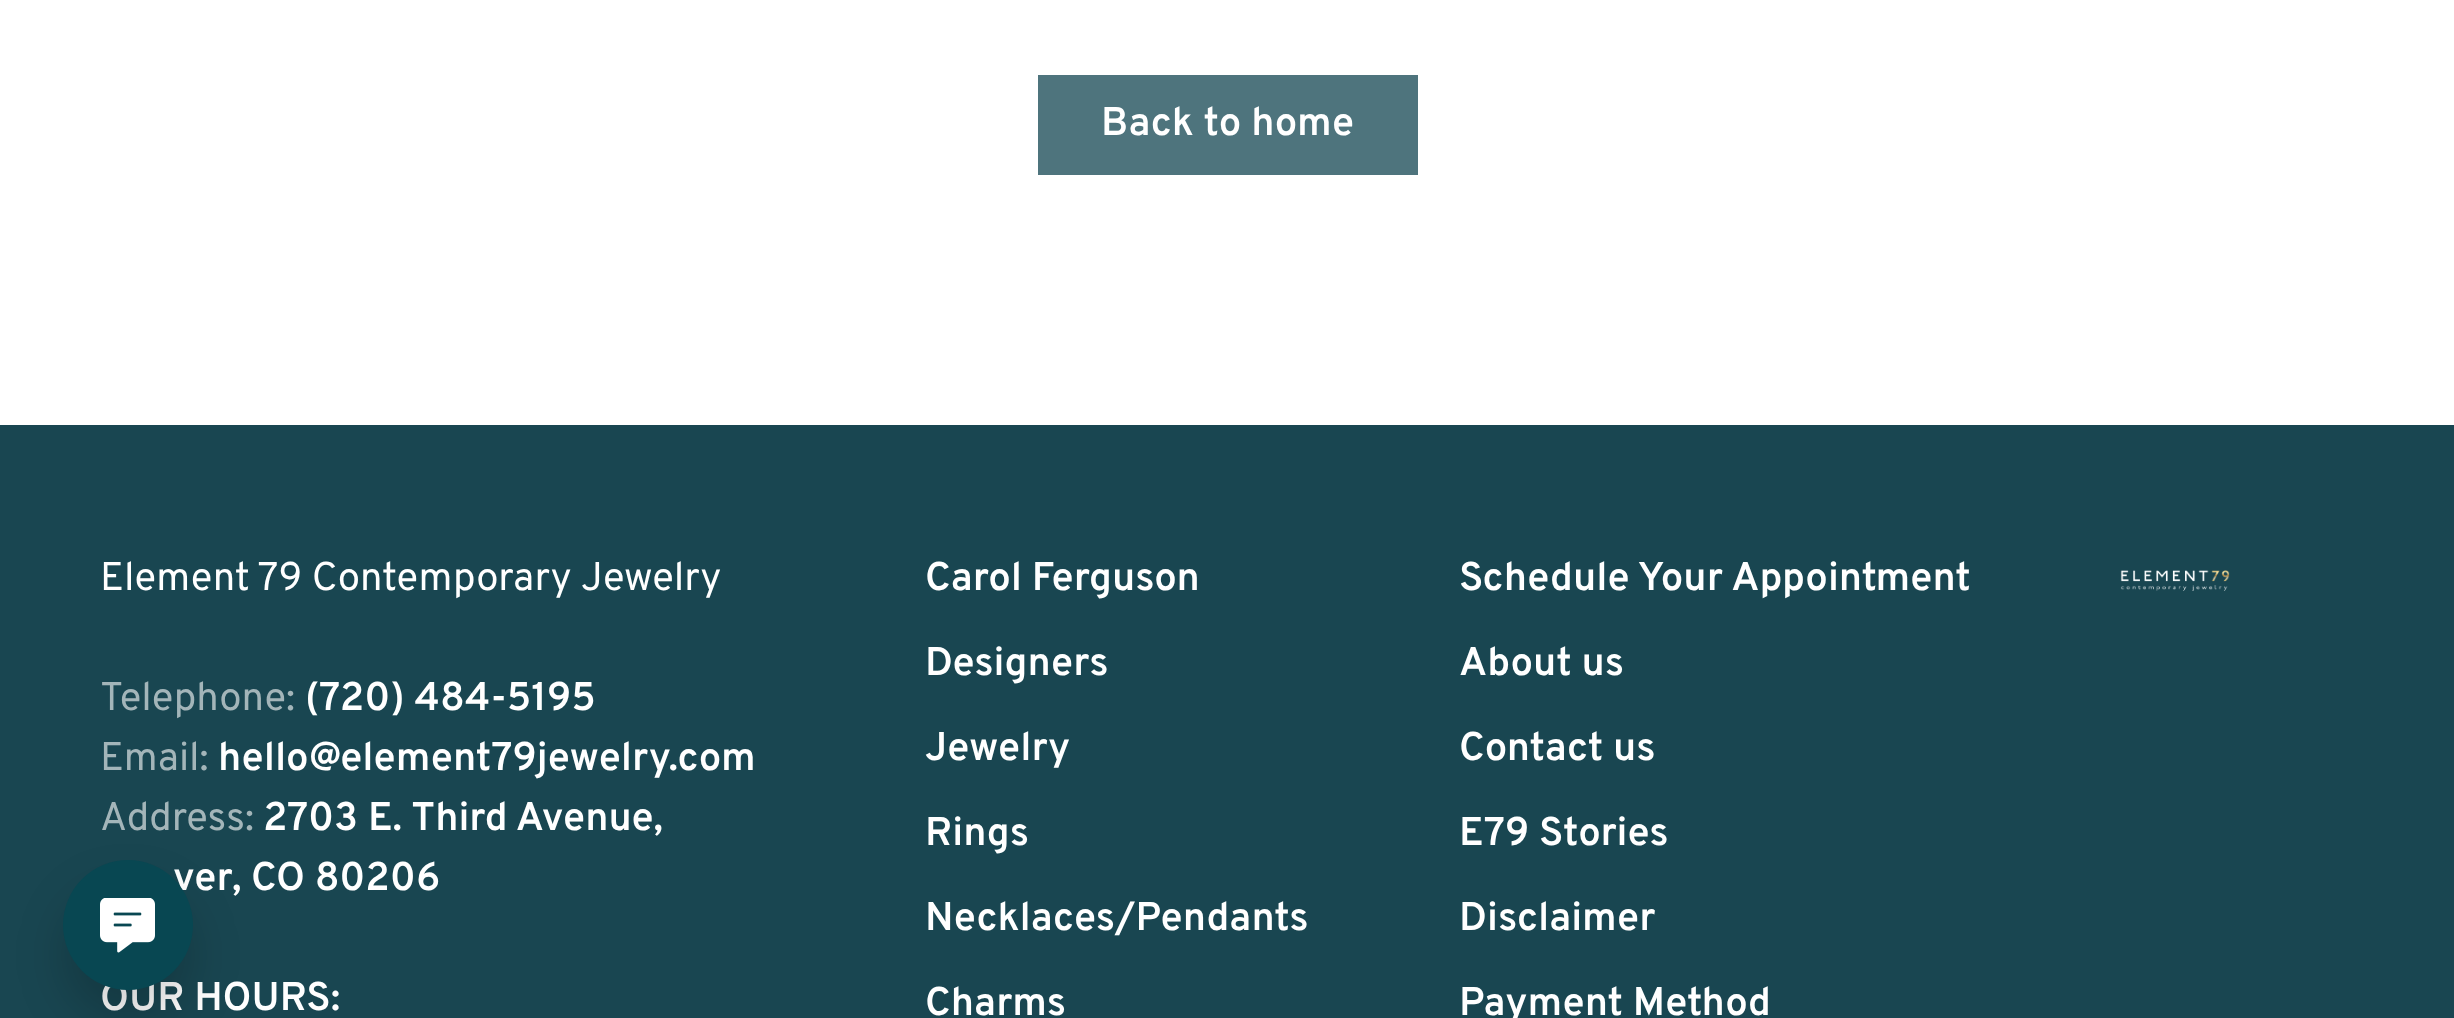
async function draw(canvas) {
	canvas.width = 2454;
	canvas.height = 1018;
	const c = canvas.getContext('2d');
	c.miterLimit = 4;
	c.fontKerning = 'normal';
	async function loadImage(src) {
		const img = new Image();
		img.src = src;
		await img.decode();
		return img;
	}

	c.fillStyle = '#fff';
	c.fillRect(0, 0, 2454, 1018);
	c.fillStyle = '#4e747d';
	c.fillRect(1038, 75, 380, 100);
	c.font = '600 40px Overpass';
	c.fillStyle = '#fff';
	c.fillText('Back to home', 1101, 135);
	c.fillStyle = '#194651';
	c.fillRect(0, 425, 2454, 593);
	c.font = '40px Overpass';
	c.fillStyle = '#fff';
	c.fillText('Element 79 Contemporary Jewelry', 100, 590);
	c.fillStyle = '#a3b5b9';
	c.fillText('Telephone:', 100, 710);
	c.font = '600 40px Overpass';
	c.fillStyle = '#fff';
	c.fillText('(720) 484-5195', 305, 710);
	c.font = '40px Overpass';
	c.fillStyle = '#a3b5b9';
	c.fillText('Email:', 100, 770);
	c.font = '600 40px Overpass';
	c.fillStyle = '#fff';
	c.fillText('hello@element79jewelry.com', 218, 770);
	c.font = '40px Overpass';
	c.fillStyle = '#a3b5b9';
	c.fillText('Address:', 100, 830);
	c.font = '600 40px Overpass';
	c.fillStyle = '#fff';
	for (const [text, x, y] of [
		['2703 E. Third Avenue,', 263, 830],
		['ver, CO 80206', 173, 890],
		['OUR HOURS:', 100, 1010],
		['Carol Ferguson', 925, 590],
		['Designers', 925, 675],
		['Jewelry', 925, 760],
		['Rings', 925, 845],
		['Necklaces/Pendants', 925, 930],
		['Charms', 925, 1015],
		['Schedule Your Appointment', 1459, 590],
		['About us', 1459, 675],
		['Contact us', 1459, 760],
		['E79 Stories', 1459, 845],
		['Disclaimer', 1459, 930],
		['Payment Method', 1459, 1015],
	]) {
		c.fillText(text, x, y);
	}
	c.drawImage(await loadImage('img1.png'), 2120, 570, 110, 21);
	c.fillStyle = '#0000002e';
	c.filter = 'blur(24px)';
	c.beginPath();
	c.roundRect(63, 890, 130, 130, 65);
	c.fill();
	c.filter = 'none';
	c.fillStyle = '#084752';
	c.beginPath();
	c.arc(128, 925, 65, 0, 2 * Math.PI);
	c.fill();
	c.drawImage(await loadImage('img2.png'), 100, 898, 55, 55);
}

draw(document.querySelector('canvas'));
